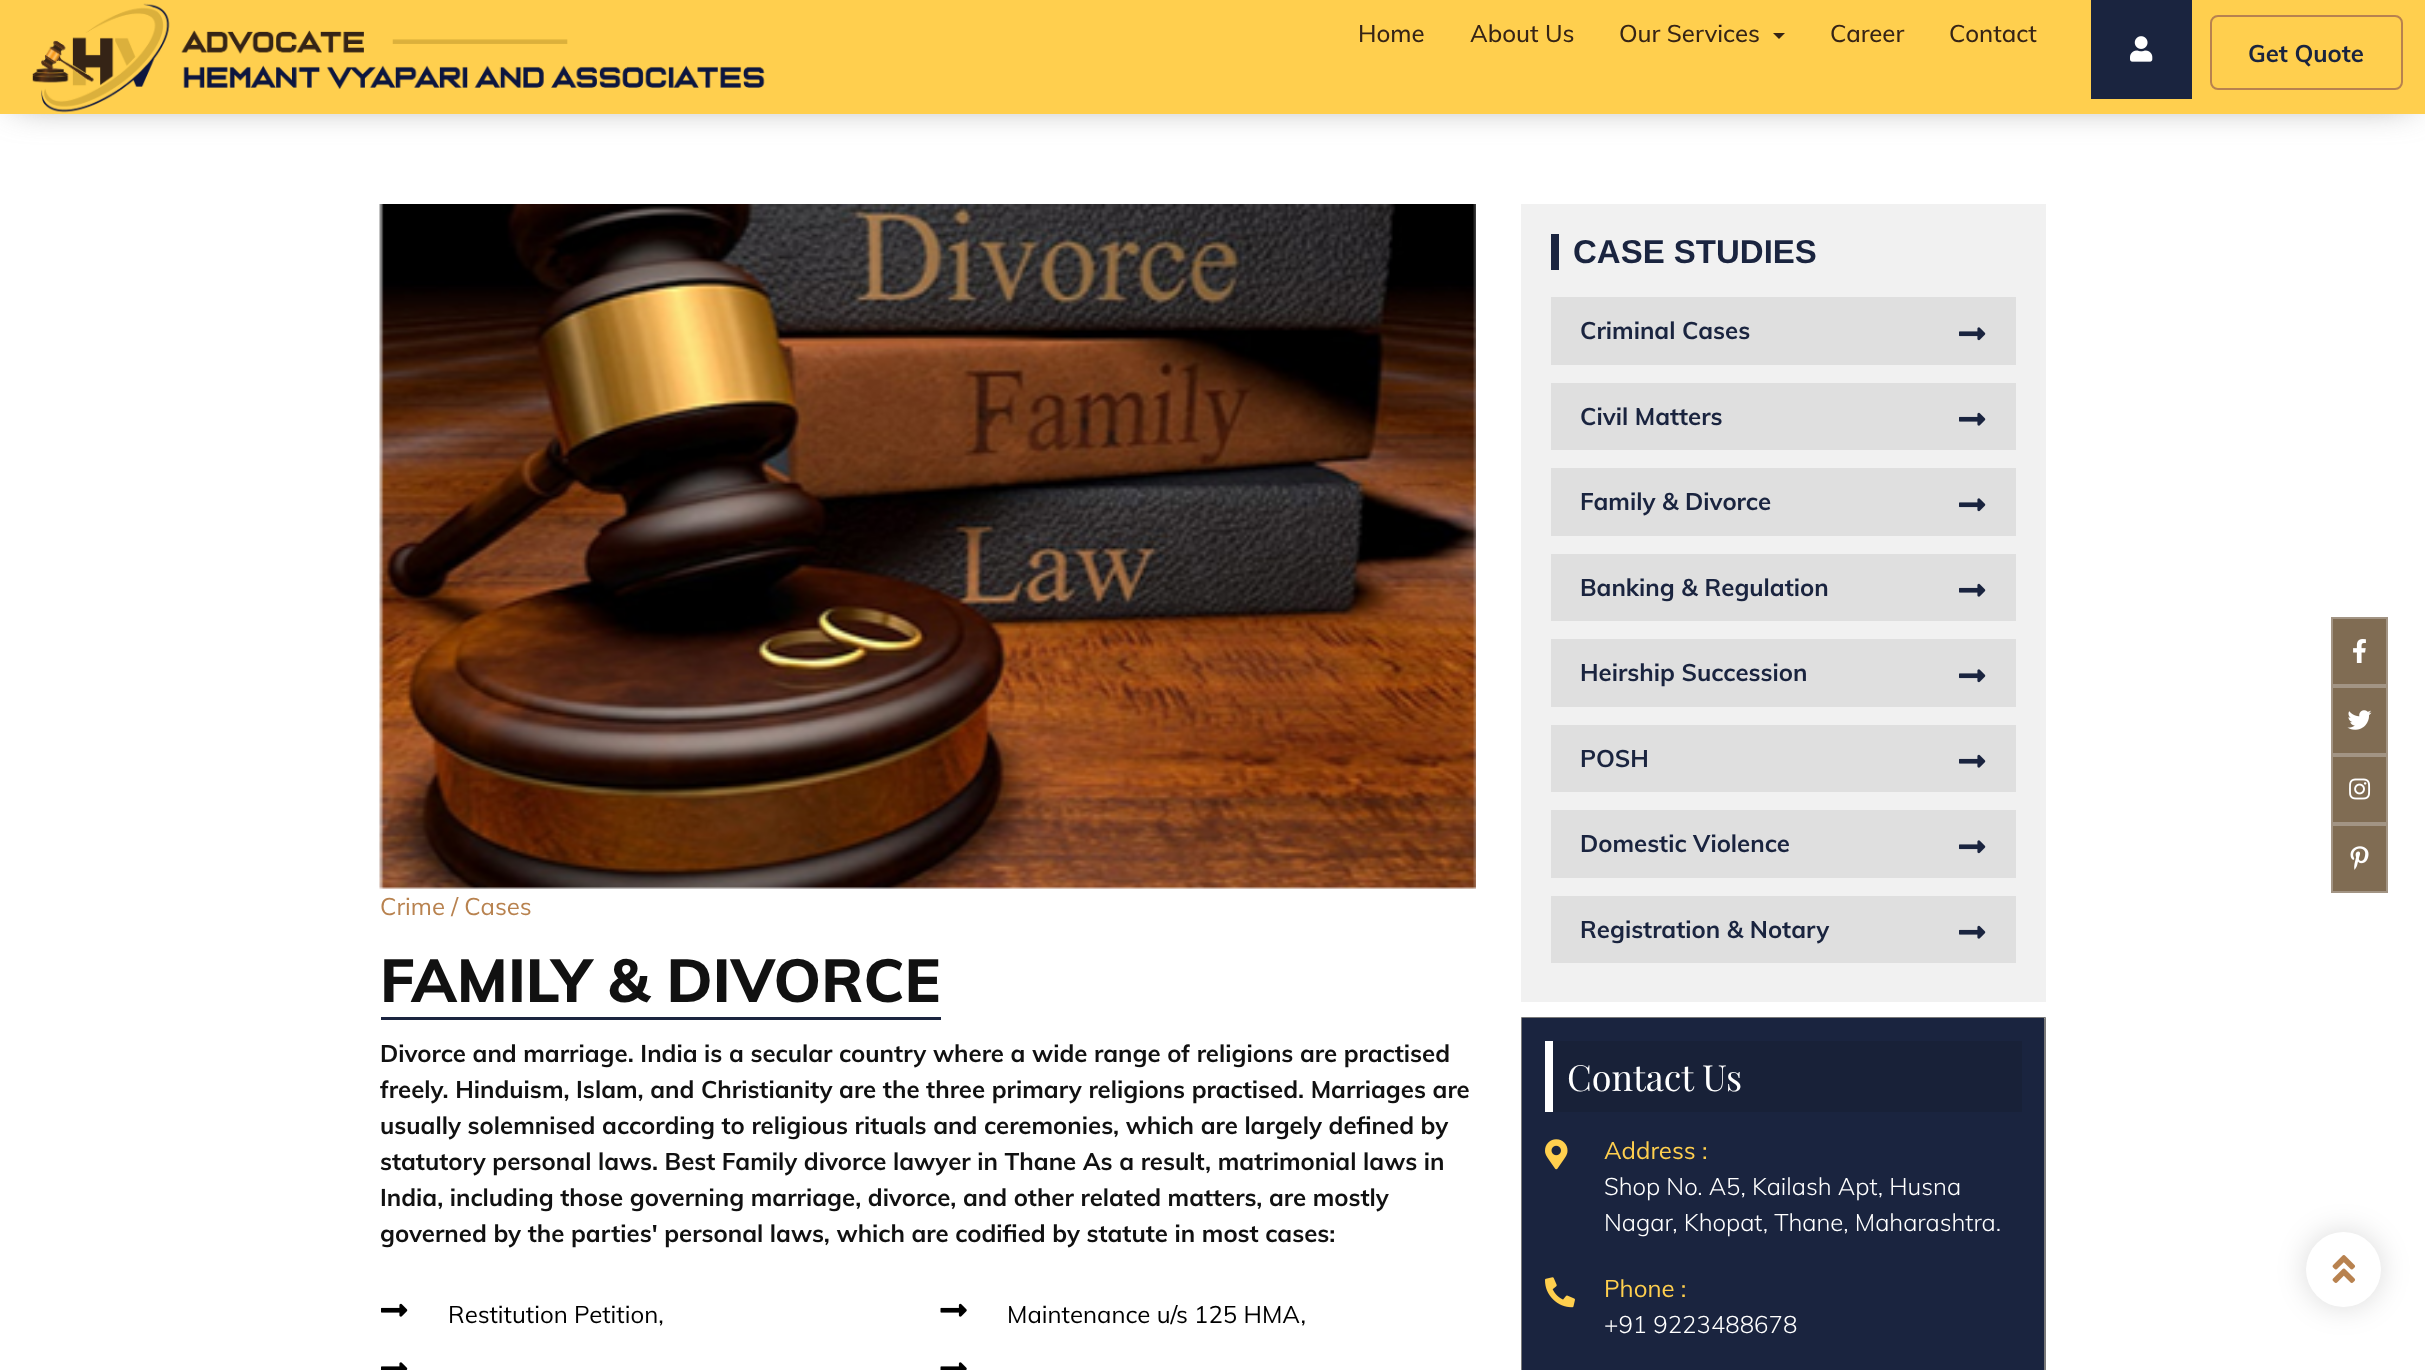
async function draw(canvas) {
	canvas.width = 2425;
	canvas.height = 1370;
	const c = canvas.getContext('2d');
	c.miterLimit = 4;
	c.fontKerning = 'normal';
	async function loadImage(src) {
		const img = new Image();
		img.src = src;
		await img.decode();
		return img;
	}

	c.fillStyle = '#fff';
	c.fillRect(0, 0, 2425, 1370);
	c.fillStyle = '#797979';
	c.filter = 'blur(19px)';
	c.beginPath();
	c.rect(15, 15, 2396, 84);
	c.fill();
	c.filter = 'none';
	c.fillStyle = '#ffcf4e';
	c.fillRect(0, 0, 2425, 114);
	c.drawImage(await loadImage('img1.png'), 32, 3, 733, 110);
	c.font = '500 24px Mulish';
	c.fillStyle = '#362416';
	for (const [text, x, y] of [
		['Home', 1358, 42],
		['About Us', 1470, 42],
		['Our Services', 1619, 42],
	]) {
		c.fillText(text, x, y);
	}
	c.beginPath();
	c.moveTo(1773, 33);
	c.lineTo(1785, 33);
	c.lineTo(1779, 39);
	c.closePath();
	c.fill();
	c.fillText('Career', 1830, 42);
	c.fillText('Contact', 1949, 42);
	c.fillStyle = '#1a243f';
	c.fillRect(2091, 0, 101, 99);
	c.drawImage(await loadImage('img2.png'), 2130, 36, 23, 26);
	c.beginPath();
	c.roundRect(2211, 16, 191, 73, 7);
	c.strokeStyle = '#b8824f';
	c.lineWidth = 2;
	c.stroke();
	c.font = 'bold 24px Mulish';
	c.fillText('Get Quote', 2248, 62);
	c.drawImage(await loadImage('img3.png'), 379, 204, 1097, 685);
	c.font = '24px Mulish';
	c.fillStyle = '#b8824f';
	c.fillText('Crime / Cases', 380, 915);
	c.font = '800 60px Mulish';
	c.fillStyle = '#111';
	c.fillText('FAMILY & DIVORCE', 380, 1002);
	c.fillStyle = '#1a243f';
	c.fillRect(381, 1017, 560, 3);
	c.font = 'bold 24px Mulish';
	c.fillStyle = '#111';
	for (const [text, x, y] of [
		['Divorce and marriage. India is a secular country where a wide range of religions are practised', 380, 1062],
		['freely. Hinduism, Islam, and Christianity are the three primary religions practised. Marriages are', 380, 1098],
		['usually solemnised according to religious rituals and ceremonies, which are largely defined by', 380, 1134],
		['statutory personal laws. Best Family divorce lawyer in Thane As a result, matrimonial laws in', 380, 1170],
		['India, including those governing marriage, divorce, and other related matters, are mostly', 380, 1206],
		['governed by the parties\' personal laws, which are codified by statute in most cases:', 380, 1242],
	]) {
		c.fillText(text, x, y);
	}
	c.drawImage(await loadImage('img4.png'), 381, 1303, 27, 14);
	c.font = '24px Mulish';
	c.fillStyle = '#000';
	c.fillText('Restitution Petition,', 448, 1323);
	c.drawImage(await loadImage('img5.png'), 940, 1303, 27, 14);
	c.fillText('Maintenance u/s 125 HMA,', 1007, 1323);
	c.drawImage(await loadImage('img6.png'), 381, 1362, 27, 8);
	c.drawImage(await loadImage('img7.png'), 940, 1362, 27, 8);
	c.fillStyle = '#f1f1f1';
	c.fillRect(1521, 204, 525, 798);
	c.fillStyle = '#1a243f';
	c.fillRect(1551, 234, 8, 36);
	c.font = 'bold 33px Liberation Sans';
	c.fillText('CASE STUDIES', 1573, 263);
	c.fillStyle = '#dfdfdf';
	c.fillRect(1551, 297, 465, 68);
	c.font = 'bold 24px Mulish';
	c.fillStyle = '#1a243f';
	c.fillText('Criminal Cases', 1580, 339);
	c.drawImage(await loadImage('img8.png'), 1959, 327, 27, 14);
	c.fillStyle = '#dfdfdf';
	c.fillRect(1551, 383, 465, 67);
	c.fillStyle = '#1a243f';
	c.fillText('Civil Matters', 1580, 425);
	c.drawImage(await loadImage('img9.png'), 1959, 412, 27, 14);
	c.fillStyle = '#dfdfdf';
	c.fillRect(1551, 468, 465, 68);
	c.fillStyle = '#1a243f';
	c.fillText('Family & Divorce', 1580, 510);
	c.drawImage(await loadImage('img8.png'), 1959, 498, 27, 14);
	c.fillStyle = '#dfdfdf';
	c.fillRect(1551, 554, 465, 67);
	c.fillStyle = '#1a243f';
	c.fillText('Banking & Regulation', 1580, 596);
	c.drawImage(await loadImage('img9.png'), 1959, 583, 27, 14);
	c.fillStyle = '#dfdfdf';
	c.fillRect(1551, 639, 465, 68);
	c.fillStyle = '#1a243f';
	c.fillText('Heirship Succession', 1580, 681);
	c.drawImage(await loadImage('img8.png'), 1959, 669, 27, 14);
	c.fillStyle = '#dfdfdf';
	c.fillRect(1551, 725, 465, 67);
	c.fillStyle = '#1a243f';
	c.fillText('POSH', 1580, 767);
	c.drawImage(await loadImage('img9.png'), 1959, 754, 27, 14);
	c.fillStyle = '#dfdfdf';
	c.fillRect(1551, 810, 465, 68);
	c.fillStyle = '#1a243f';
	c.fillText('Domestic Violence', 1580, 852);
	c.drawImage(await loadImage('img8.png'), 1959, 840, 27, 14);
	c.fillStyle = '#dfdfdf';
	c.fillRect(1551, 896, 465, 67);
	c.fillStyle = '#1a243f';
	c.fillText('Registration & Notary', 1580, 938);
	c.drawImage(await loadImage('img9.png'), 1959, 925, 27, 14);
	c.beginPath();
	c.moveTo(1522, 1018);
	c.lineTo(2044, 1018);
	c.lineTo(2044, 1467);
	c.bezierCurveTo(2044, 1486, 2026, 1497, 2008, 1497);
	c.lineTo(1522, 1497);
	c.closePath();
	c.fill();
	c.fillStyle = '#797979';
	c.beginPath();
	c.moveTo(1521, 1017);
	c.lineTo(1522, 1018);
	c.lineTo(2044, 1018);
	c.lineTo(2044, 1019);
	c.lineTo(2046, 1017);
	c.closePath();
	c.fill();
	c.beginPath();
	c.moveTo(2046, 1017);
	c.lineTo(2044, 1019);
	c.lineTo(2044, 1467);
	c.bezierCurveTo(2044, 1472, 2043, 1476, 2041, 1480);
	c.lineTo(2042, 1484);
	c.bezierCurveTo(2045, 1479, 2046, 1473, 2046, 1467);
	c.closePath();
	c.fill();
	c.beginPath();
	c.moveTo(1522, 1018);
	c.lineTo(1521, 1017);
	c.lineTo(1521, 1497);
	c.lineTo(1522, 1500);
	c.lineTo(1522, 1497);
	c.closePath();
	c.fill();
	c.fillStyle = '#182138';
	c.fillRect(1553, 1041, 469, 71);
	c.fillStyle = '#fff';
	c.fillRect(1545, 1041, 8, 71);
	c.font = '36px Playfair Display';
	c.fillText('Contact Us', 1567, 1091);
	c.drawImage(await loadImage('img10.png'), 1545, 1139, 23, 31);
	c.font = '24px Mulish';
	c.fillStyle = '#ffcf4e';
	c.fillText('Address :', 1604, 1159);
	c.font = '300 24px Mulish';
	c.fillStyle = '#fff';
	c.fillText('Shop No. A5, Kailash Apt, Husna', 1604, 1195);
	c.fillText('Nagar, Khopat, Thane, Maharashtra.', 1604, 1231);
	c.drawImage(await loadImage('img11.png'), 1545, 1277, 30, 31);
	c.font = '24px Mulish';
	c.fillStyle = '#ffcf4e';
	c.fillText('Phone :', 1604, 1297);
	c.font = '300 24px Mulish';
	c.fillStyle = '#fff';
	c.fillText('+91 9223488678', 1604, 1333);
	c.fillStyle = '#806c53';
	c.beginPath();
	c.rect(2332, 618, 55, 67);
	c.fill();
	c.strokeStyle = '#a29484';
	c.stroke();
	c.drawImage(await loadImage('img12.png'), 2353, 639, 13, 24);
	c.beginPath();
	c.rect(2332, 687, 55, 67);
	c.fill();
	c.stroke();
	c.drawImage(await loadImage('img13.png'), 2347, 710, 25, 20);
	c.beginPath();
	c.rect(2332, 756, 55, 67);
	c.fill();
	c.stroke();
	c.drawImage(await loadImage('img14.png'), 2349, 778, 22, 22);
	c.beginPath();
	c.rect(2332, 825, 55, 67);
	c.fill();
	c.stroke();
	c.drawImage(await loadImage('img15.png'), 2350, 846, 19, 24);
	c.fillStyle = '#00000026';
	c.filter = 'blur(15px)';
	c.beginPath();
	c.roundRect(2306, 1232, 75, 75, 37.5);
	c.fill();
	c.filter = 'none';
	c.fillStyle = '#fff';
	c.beginPath();
	c.arc(2343.5, 1269.5, 37.5, 0, 2 * Math.PI);
	c.fill();
	c.drawImage(await loadImage('img16.png'), 2332, 1255, 24, 28);
}

draw(document.querySelector('canvas'));
